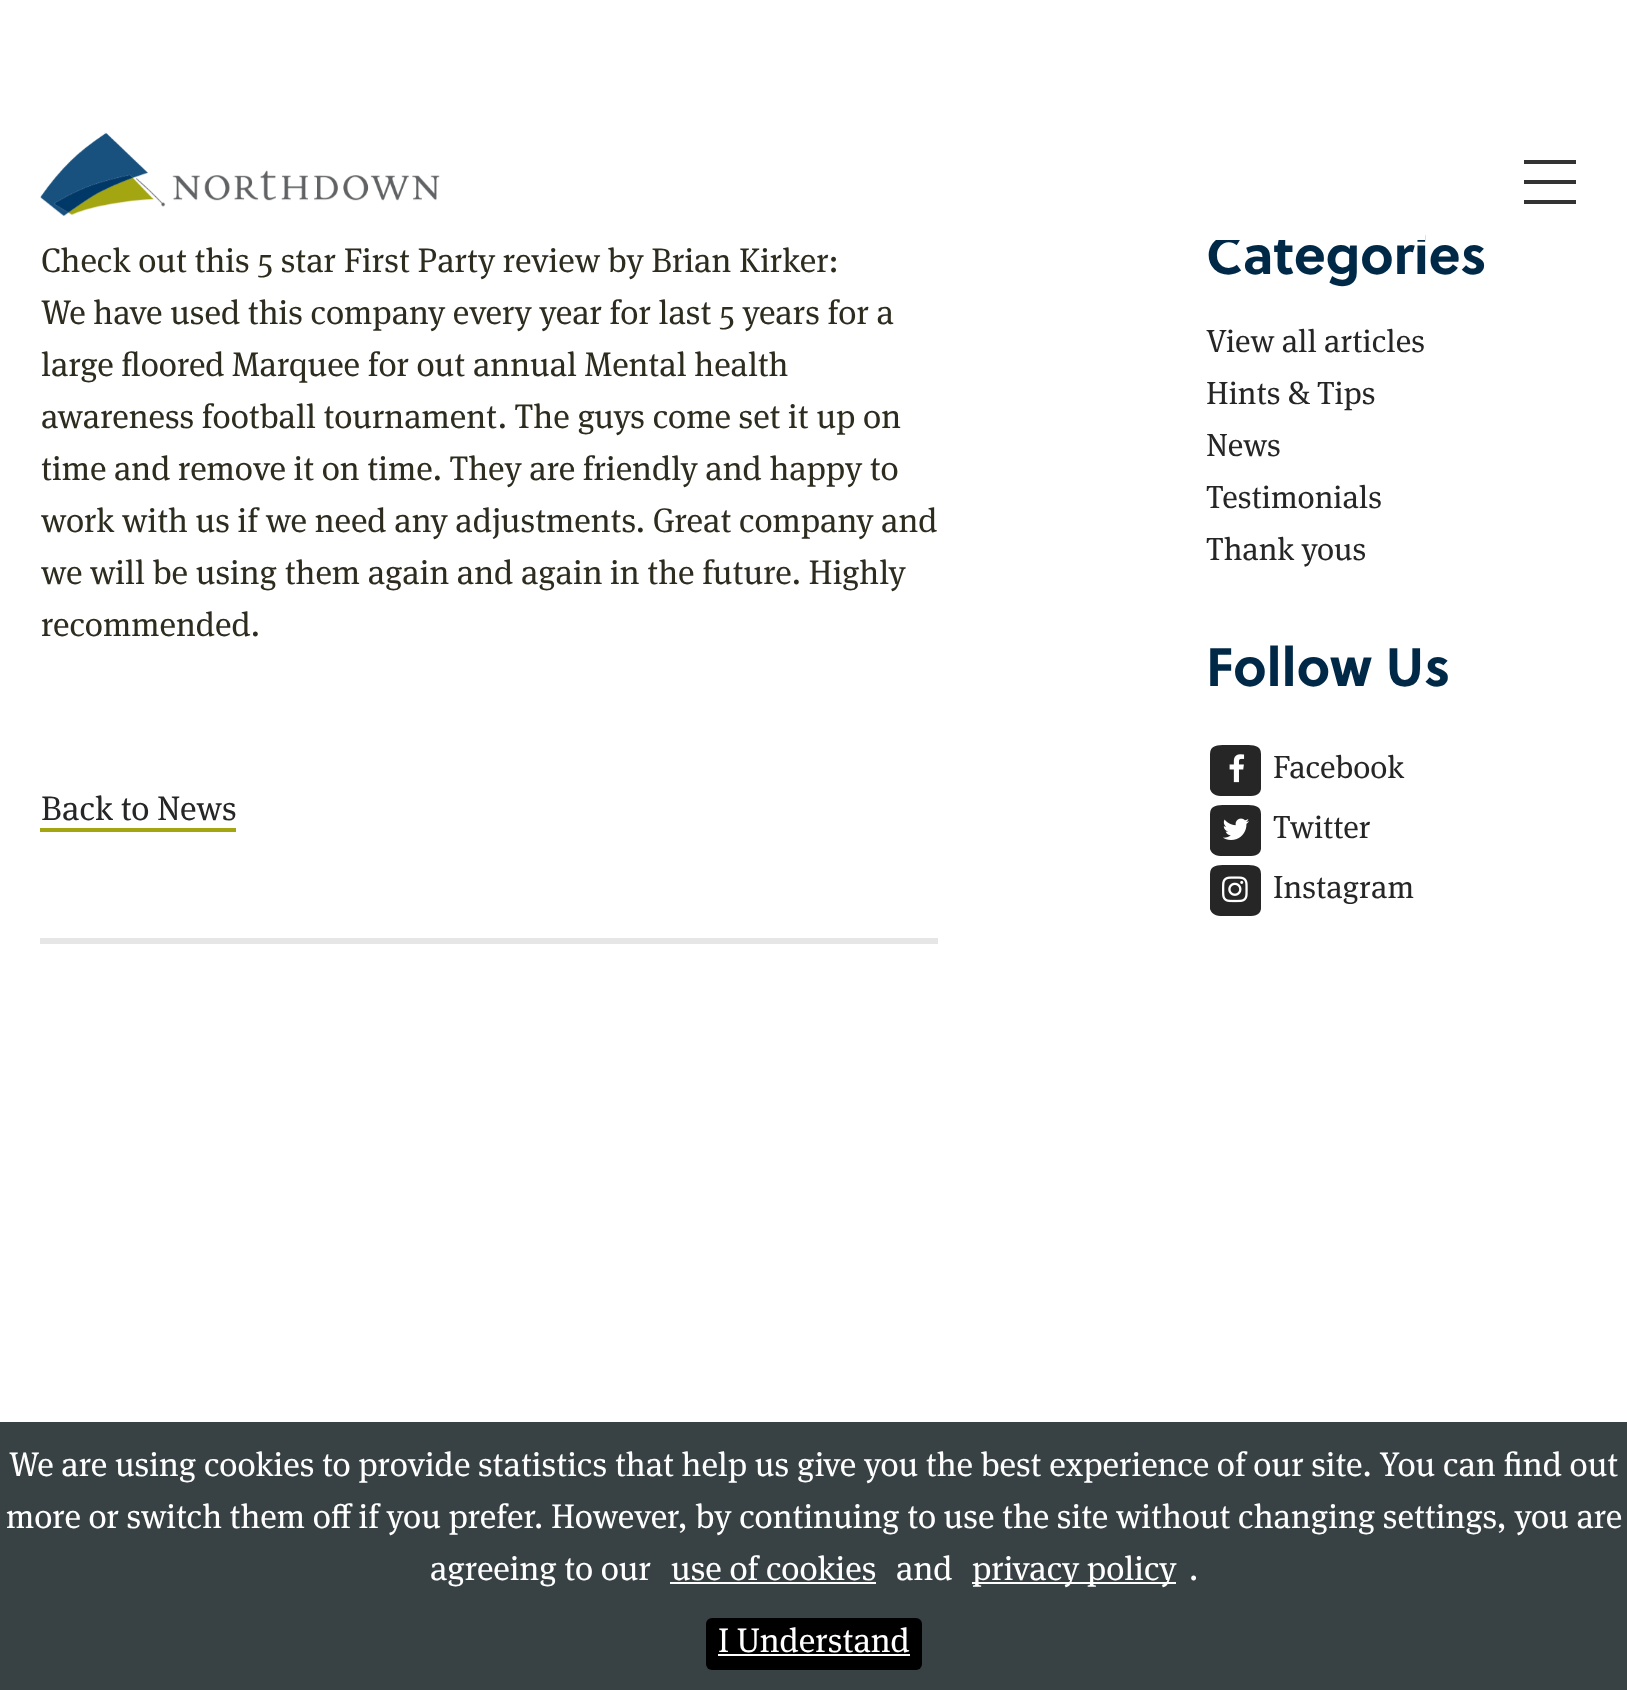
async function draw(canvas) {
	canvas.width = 1627;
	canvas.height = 1690;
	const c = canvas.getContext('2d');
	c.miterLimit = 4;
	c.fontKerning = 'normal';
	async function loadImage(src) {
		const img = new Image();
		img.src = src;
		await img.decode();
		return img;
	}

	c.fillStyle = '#fff';
	c.fillRect(0, 0, 1627, 1690);
	c.font = 'bold 54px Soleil';
	c.fillStyle = '#002847';
	c.fillText('Categories', 1206, 274);
	c.fillStyle = '#fff';
	c.fillRect(1215, 235, 210, 5);
	c.drawImage(await loadImage('img1.png'), 40, 132, 400, 84);
	for (const [x, y, w, h, color] of [
		[1524, 200, 52, 4, '#333'],
		[1524, 160, 52, 4, '#333'],
		[1524, 180, 52, 4, '#333'],
		[40, 938, 898, 6, '#e6e6e6'],
	]) {
		c.fillStyle = color;
		c.fillRect(x, y, w, h);
	}
	c.font = '500 34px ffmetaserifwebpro';
	c.fillStyle = '#2d2c1f';
	for (const [text, x, y] of [
		['Check out this 5 star First Party review by Brian Kirker:', 41, 272],
		['We have used this company every year for last 5 years for a', 41, 324],
		['large floored Marquee for out annual Mental health', 41, 376],
		['awareness football tournament. The guys come set it up on', 41, 428],
		['time and remove it on time. They are friendly and happy to', 41, 480],
		['work with us if we need any adjustments. Great company and', 41, 532],
		['we will be using them again and again in the future. Highly', 41, 584],
		['recommended.', 41, 636],
	]) {
		c.fillText(text, x, y);
	}
	c.fillStyle = '#262626';
	c.fillText('Back to News', 41, 820);
	c.fillStyle = '#a3a511';
	c.fillRect(40, 828, 196, 4);
	c.font = '500 32px ffmetaserifwebpro';
	c.fillStyle = '#262626';
	for (const [text, x, y] of [
		['View all articles', 1206, 352],
		['Hints & Tips', 1206, 404],
		['News', 1206, 456],
		['Testimonials', 1206, 508],
		['Thank yous', 1206, 560],
	]) {
		c.fillText(text, x, y);
	}
	c.font = 'bold 54px Soleil';
	c.fillStyle = '#002847';
	c.fillText('Follow Us', 1206, 686);
	c.fillStyle = '#262626';
	c.beginPath();
	c.moveTo(1261, 754);
	c.lineTo(1261, 789);
	c.bezierCurveTo(1260, 796, 1253, 796, 1246, 796);
	c.lineTo(1225, 796);
	c.bezierCurveTo(1219, 796, 1212, 796, 1210, 789);
	c.lineTo(1210, 754);
	c.bezierCurveTo(1210, 745, 1218, 745, 1225, 745);
	c.lineTo(1246, 745);
	c.bezierCurveTo(1253, 745, 1261, 745, 1261, 754);
	c.closePath();
	c.fill();
	c.drawImage(await loadImage('img2.png'), 1229, 754, 16, 29);
	c.font = '500 32px ffmetaserifwebpro';
	c.fillText('Facebook', 1273, 778);
	c.beginPath();
	c.moveTo(1261, 814);
	c.lineTo(1261, 849);
	c.bezierCurveTo(1260, 856, 1253, 856, 1246, 856);
	c.lineTo(1225, 856);
	c.bezierCurveTo(1219, 856, 1212, 856, 1210, 849);
	c.lineTo(1210, 814);
	c.bezierCurveTo(1210, 805, 1218, 805, 1225, 805);
	c.lineTo(1246, 805);
	c.bezierCurveTo(1253, 805, 1261, 805, 1261, 814);
	c.closePath();
	c.fill();
	c.drawImage(await loadImage('img3.png'), 1223, 818, 26, 22);
	c.fillText('Twitter', 1273, 838);
	c.beginPath();
	c.moveTo(1261, 874);
	c.lineTo(1261, 909);
	c.bezierCurveTo(1260, 916, 1253, 916, 1246, 916);
	c.lineTo(1225, 916);
	c.bezierCurveTo(1219, 916, 1212, 916, 1210, 909);
	c.lineTo(1210, 874);
	c.bezierCurveTo(1210, 865, 1218, 865, 1225, 865);
	c.lineTo(1246, 865);
	c.bezierCurveTo(1253, 865, 1261, 865, 1261, 874);
	c.closePath();
	c.fill();
	c.drawImage(await loadImage('img4.png'), 1222, 876, 26, 27);
	c.fillText('Instagram', 1273, 898);
	c.fillStyle = '#384144';
	c.fillRect(0, 1422, 1627, 268);
	c.font = '500 34px ffmetaserifwebpro';
	c.fillStyle = '#fff';
	for (const [text, x, y] of [
		['We are using cookies to provide statistics that help us give you the best experience of our site. You can find out', 9, 1476],
		['more or switch them off if you prefer. However, by continuing to use the site without changing settings, you are', 6, 1528],
		['agreeing to our', 430, 1580],
		['use of cookies', 671, 1580],
	]) {
		c.fillText(text, x, y);
	}
	c.fillRect(670, 1582, 206, 2);
	c.fillText('and', 896, 1580);
	c.fillRect(972, 1582, 204, 2);
	c.fillText('privacy policy', 972, 1580);
	c.fillText('.', 1189, 1580);
	c.fillStyle = '#000';
	c.beginPath();
	c.roundRect(706, 1618, 216, 52, 6);
	c.fill();
	c.fillStyle = '#fff';
	c.fillText('I Understand', 718, 1652);
	c.fillRect(718, 1654, 192, 2);
}

draw(document.querySelector('canvas'));
